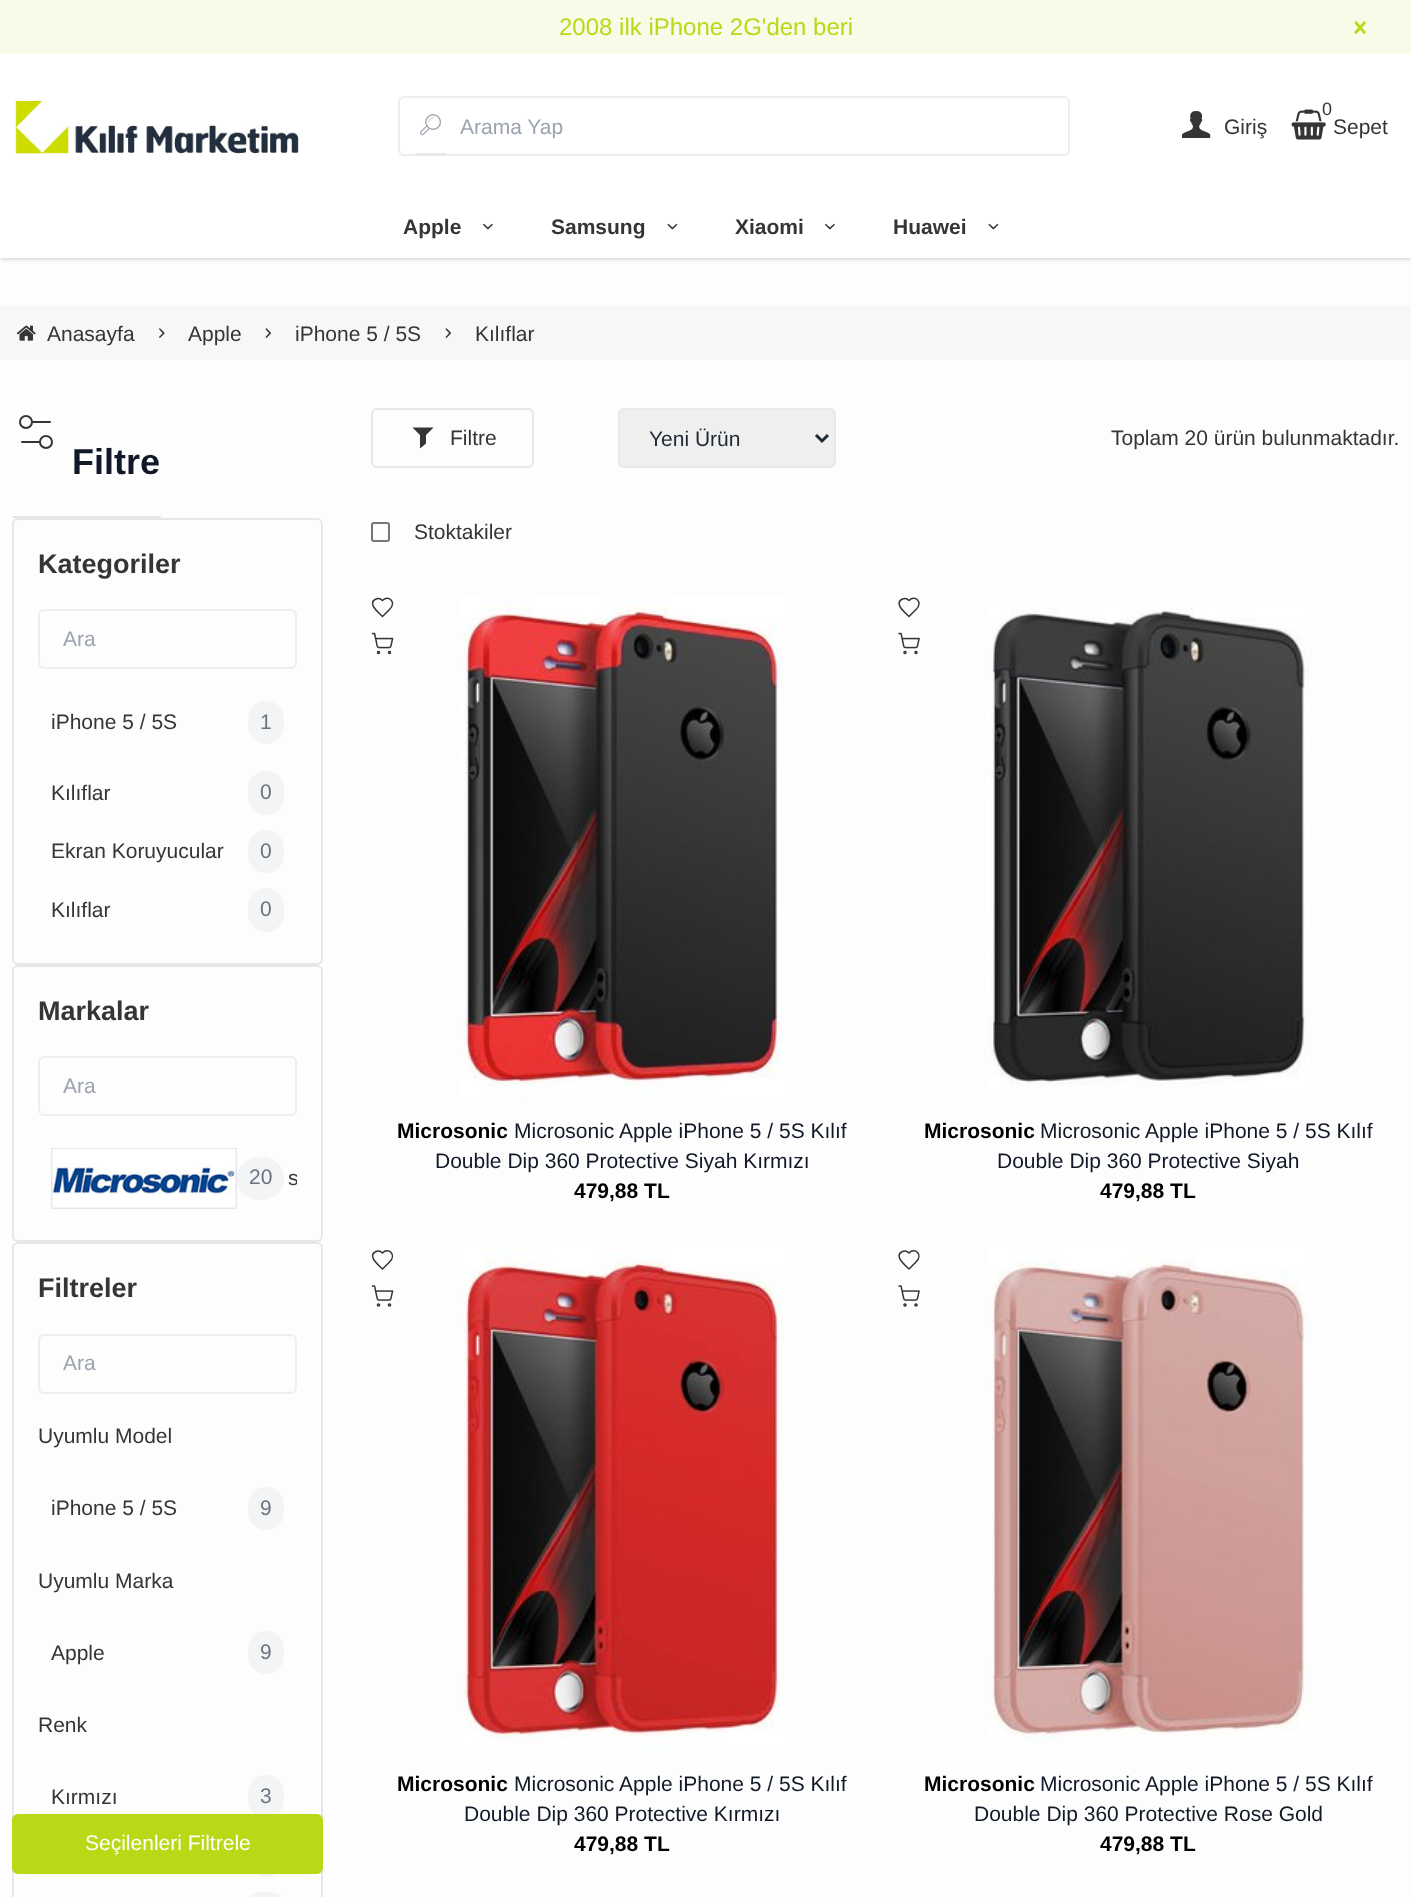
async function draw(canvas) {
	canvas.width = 1411;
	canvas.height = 1897;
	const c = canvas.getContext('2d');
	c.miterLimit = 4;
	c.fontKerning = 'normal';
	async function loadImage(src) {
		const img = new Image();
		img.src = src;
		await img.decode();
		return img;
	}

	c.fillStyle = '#fdfdfd';
	c.fillRect(0, 0, 1411, 1897);
	c.fillStyle = '#0000001a';
	c.filter = 'blur(1.5px)';
	c.beginPath();
	c.rect(2, 3, 1408, 255);
	c.fill();
	c.filter = 'none';
	c.filter = 'blur(2px)';
	c.beginPath();
	c.rect(0, 2, 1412, 258);
	c.fill();
	c.filter = 'none';
	c.fillStyle = '#fff';
	c.fillRect(0, 54, 1411, 204);
	c.fillStyle = '#f8fbe8';
	c.fillRect(0, 0, 1411, 54);
	c.font = '24px Liberation Sans';
	c.fillStyle = '#bbd817';
	c.fillText('2008 ilk iPhone 2G\'den beri', 559, 35);
	c.drawImage(await loadImage('img1.png'), 1354, 21, 12, 13);
	c.drawImage(await loadImage('img2.png'), 12, 97, 287, 58);
	c.beginPath();
	c.roundRect(399, 97, 670, 58, 5);
	c.strokeStyle = '#edeef1';
	c.lineWidth = 2;
	c.stroke();
	c.fillStyle = '#e5e7eb';
	c.fillRect(416, 153, 30, 3);
	c.drawImage(await loadImage('img3.png'), 420, 114, 21, 22);
	c.save();
	c.beginPath();
	c.rect(459, 114, 585, 24);
	c.clip();
	c.font = '21px Liberation Sans';
	c.fillStyle = '#9ca3af';
	c.fillText('Arama Yap', 460, 134);
	c.restore();
	c.drawImage(await loadImage('img4.png'), 1182, 111, 29, 27);
	c.font = '21px Liberation Sans';
	c.fillStyle = '#353535';
	c.fillText('Giriş', 1224, 134);
	c.drawImage(await loadImage('img5.png'), 1291, 109, 35, 31);
	c.font = '18px Liberation Sans';
	c.fillText('0', 1322, 115);
	c.font = '21px Liberation Sans';
	c.fillText('Sepet', 1333, 134);
	c.font = 'bold 21px Liberation Sans';
	c.fillText('Apple', 403, 234);
	c.drawImage(await loadImage('img6.png'), 483, 223, 10, 7);
	c.fillText('Samsung', 551, 234);
	c.drawImage(await loadImage('img7.png'), 667, 223, 11, 7);
	c.fillText('Xiaomi', 735, 234);
	c.drawImage(await loadImage('img6.png'), 825, 223, 10, 7);
	c.fillText('Huawei', 893, 234);
	c.drawImage(await loadImage('img7.png'), 988, 223, 11, 7);
	c.fillStyle = '#f7f7f7';
	c.fillRect(0, 306, 1411, 54);
	c.drawImage(await loadImage('img8.png'), 16, 325, 20, 16);
	c.font = '21px Liberation Sans';
	c.fillStyle = '#353535';
	c.fillText('Anasayfa', 47, 341);
	c.drawImage(await loadImage('img9.png'), 159, 328, 6, 10);
	c.fillText('Apple', 188, 341);
	c.drawImage(await loadImage('img10.png'), 265, 328, 6, 10);
	c.fillText('iPhone 5 / 5S', 295, 341);
	c.drawImage(await loadImage('img10.png'), 445, 328, 6, 10);
	c.fillText('Kılıflar', 475, 341);
	c.fillStyle = '#e5e7eb';
	c.fillRect(12, 516, 149, 2);
	c.beginPath();
	c.moveTo(40, 442);
	c.lineTo(22, 442);
	c.moveTo(50, 422);
	c.lineTo(32, 422);
	c.strokeStyle = '#353535';
	c.lineCap = 'round';
	c.lineJoin = 'round';
	c.stroke();
	c.beginPath();
	c.arc(46, 442, 6, 0, 2 * Math.PI);
	c.stroke();
	c.beginPath();
	c.arc(26, 422, 6, 0, 2 * Math.PI);
	c.stroke();
	c.font = 'bold 36px Liberation Sans';
	c.fillStyle = '#111827';
	c.fillText('Filtre', 72, 474);
	c.beginPath();
	c.roundRect(13, 519, 309, 445, 5);
	c.strokeStyle = '#e5e7eb';
	c.lineJoin = 'miter';
	c.stroke();
	c.font = 'bold 27px Liberation Sans';
	c.fillStyle = '#353535';
	c.fillText('Kategoriler', 38, 573);
	c.beginPath();
	c.roundRect(39, 610, 257, 58, 5);
	c.strokeStyle = '#edeef1';
	c.stroke();
	c.font = '21px Liberation Sans';
	c.fillStyle = '#9ca3af';
	c.fillText('Ara', 63, 646);
	c.fillStyle = '#353535';
	c.fillText('iPhone 5 / 5S', 51, 729);
	c.fillStyle = '#f3f4f6';
	c.beginPath();
	c.roundRect(248, 701, 36, 43, 18);
	c.fill();
	c.fillStyle = '#6b7280';
	c.fillText('1', 260, 729);
	c.fillStyle = '#353535';
	c.fillText('Kılıflar', 51, 800);
	c.fillStyle = '#f3f4f6';
	c.beginPath();
	c.roundRect(248, 771, 36, 44, 18);
	c.fill();
	c.fillStyle = '#6b7280';
	c.fillText('0', 260, 799);
	c.fillStyle = '#353535';
	c.fillText('Ekran Koruyucular', 51, 858);
	c.fillStyle = '#f3f4f6';
	c.beginPath();
	c.roundRect(248, 830, 36, 43, 18);
	c.fill();
	c.fillStyle = '#6b7280';
	c.fillText('0', 260, 858);
	c.fillStyle = '#353535';
	c.fillText('Kılıflar', 51, 917);
	c.fillStyle = '#f3f4f6';
	c.beginPath();
	c.roundRect(248, 888, 36, 44, 18);
	c.fill();
	c.fillStyle = '#6b7280';
	c.fillText('0', 260, 916);
	c.beginPath();
	c.roundRect(13, 966, 309, 275, 5);
	c.strokeStyle = '#e5e7eb';
	c.stroke();
	c.font = 'bold 27px Liberation Sans';
	c.fillStyle = '#353535';
	c.fillText('Markalar', 38, 1020);
	c.beginPath();
	c.roundRect(39, 1057, 257, 58, 5);
	c.strokeStyle = '#edeef1';
	c.stroke();
	c.font = '21px Liberation Sans';
	c.fillStyle = '#9ca3af';
	c.fillText('Ara', 63, 1093);
	c.fillStyle = '#f3f4f6';
	c.beginPath();
	c.roundRect(237, 1157, 47, 43, 21.5);
	c.fill();
	c.fillStyle = '#6b7280';
	c.fillText('20', 249, 1184);
	c.strokeStyle = '#e5e7eb';
	c.strokeRect(52, 1149, 184, 59);
	c.drawImage(await loadImage('img11.png'), 52, 1149, 184, 59);
	c.save();
	c.beginPath();
	c.rect(38, 1140, 259, 77);
	c.clip();
	c.fillStyle = '#353535';
	c.fillText('s', 288, 1185);
	c.restore();
	c.beginPath();
	c.roundRect(13, 1243, 309, 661, 5);
	c.stroke();
	c.font = 'bold 27px Liberation Sans';
	c.fillStyle = '#353535';
	c.fillText('Filtreler', 38, 1297);
	c.beginPath();
	c.roundRect(39, 1335, 257, 58, 5);
	c.strokeStyle = '#edeef1';
	c.stroke();
	c.font = '21px Liberation Sans';
	c.fillStyle = '#9ca3af';
	c.fillText('Ara', 63, 1370);
	c.fillStyle = '#353535';
	c.fillText('Uyumlu Model', 38, 1443);
	c.fillText('iPhone 5 / 5S', 51, 1515);
	c.fillStyle = '#f3f4f6';
	c.beginPath();
	c.roundRect(248, 1487, 36, 43, 18);
	c.fill();
	c.fillStyle = '#6b7280';
	c.fillText('9', 260, 1515);
	c.fillStyle = '#353535';
	c.fillText('Uyumlu Marka', 38, 1588);
	c.fillText('Apple', 51, 1660);
	c.fillStyle = '#f3f4f6';
	c.beginPath();
	c.roundRect(248, 1631, 36, 43, 18);
	c.fill();
	c.fillStyle = '#6b7280';
	c.fillText('9', 260, 1659);
	c.fillStyle = '#353535';
	c.fillText('Renk', 38, 1732);
	c.fillText('Kırmızı', 51, 1804);
	c.fillStyle = '#f3f4f6';
	c.beginPath();
	c.roundRect(248, 1775, 36, 43, 18);
	c.fill();
	c.fillStyle = '#6b7280';
	c.fillText('3', 260, 1803);
	c.fillStyle = '#f3f4f6';
	c.beginPath();
	c.roundRect(248, 1833, 36, 44, 18);
	c.fill();
	c.beginPath();
	c.roundRect(248, 1892, 36, 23, 18);
	c.fill();
	c.fillStyle = '#bbd817';
	c.beginPath();
	c.roundRect(13, 1815, 309, 58, 5);
	c.fill();
	c.strokeStyle = '#bbd817';
	c.stroke();
	c.fillStyle = '#fff';
	c.fillText('Seçilenleri Filtrele', 85, 1850);
	c.beginPath();
	c.roundRect(372, 409, 161, 58, 5);
	c.strokeStyle = '#e5e7eb';
	c.stroke();
	c.fillStyle = '#353535';
	c.beginPath();
	c.moveTo(412.5, 427.5);
	c.lineTo(433.5, 427.5);
	c.lineTo(426, 435);
	c.lineTo(426, 443.5);
	c.lineTo(420, 448.5);
	c.lineTo(420, 435);
	c.closePath();
	c.fill();
	c.fillText('Filtre', 450, 445);
	c.fillStyle = '#efefef';
	c.beginPath();
	c.roundRect(618, 408, 218, 60, 6);
	c.fill();
	c.beginPath();
	c.roundRect(619, 409, 216, 58, 5);
	c.strokeStyle = '#e5e7ebb3';
	c.stroke();
	c.beginPath();
	c.moveTo(816, 435);
	c.lineTo(822, 441);
	c.lineTo(828, 435);
	c.strokeStyle = '#1f2937';
	c.lineWidth = 3;
	c.lineCap = 'butt';
	c.stroke();
	c.fillStyle = '#1f2937';
	c.fillText('Yeni Ürün', 649, 446);
	c.fillStyle = '#353535';
	c.fillText('Toplam 20 ürün bulunmaktadır.', 1111, 445);
	c.beginPath();
	c.roundRect(372, 523, 17, 18, 2);
	c.strokeStyle = '#767676';
	c.lineWidth = 2;
	c.stroke();
	c.fillText('Stoktakiler', 414, 539);
	c.beginPath();
	c.moveTo(389.5, 609.5);
	c.bezierCurveTo(397, 602, 388.5, 594.5, 382.5, 600.5);
	c.bezierCurveTo(378.5, 596.5, 371, 599.5, 373, 605.5);
	c.bezierCurveTo(374, 609, 380, 614, 382.5, 616.5);
	c.closePath();
	c.strokeStyle = '#353535';
	c.lineWidth = 1.5;
	c.lineCap = 'round';
	c.lineJoin = 'round';
	c.stroke();
	c.drawImage(await loadImage('img12.png'), 371, 632, 23, 23);
	c.drawImage(await loadImage('img13.png'), 461, 596, 324, 502);
	c.font = 'bold 21px Liberation Sans';
	c.fillStyle = '#000';
	c.fillText('Microsonic', 397, 1138);
	c.font = '21px Liberation Sans';
	c.fillStyle = '#111827';
	c.fillText('Microsonic Apple iPhone 5 / 5S Kılıf', 514, 1138);
	c.fillText('Double Dip 360 Protective Siyah Kırmızı', 435, 1168);
	c.font = 'bold 21px Liberation Sans';
	c.fillStyle = '#000';
	c.fillText('479,88 TL', 574, 1198);
	c.beginPath();
	c.moveTo(916, 609.5);
	c.bezierCurveTo(923.5, 602, 915, 594.5, 909, 600.5);
	c.bezierCurveTo(905, 596.5, 897.5, 599.5, 899.5, 605.5);
	c.bezierCurveTo(900.5, 609, 906.5, 614, 909, 616.5);
	c.closePath();
	c.stroke();
	c.drawImage(await loadImage('img14.png'), 898, 632, 22, 23);
	c.drawImage(await loadImage('img15.png'), 988, 606, 322, 482);
	c.fillText('Microsonic', 924, 1138);
	c.font = '21px Liberation Sans';
	c.fillStyle = '#111827';
	c.fillText('Microsonic Apple iPhone 5 / 5S Kılıf', 1040, 1138);
	c.fillText('Double Dip 360 Protective Siyah', 997, 1168);
	c.font = 'bold 21px Liberation Sans';
	c.fillStyle = '#000';
	c.fillText('479,88 TL', 1100, 1198);
	c.beginPath();
	c.moveTo(389.5, 1262);
	c.bezierCurveTo(397, 1254.5, 388.5, 1247, 382.5, 1253);
	c.bezierCurveTo(378.5, 1249, 371, 1252, 373, 1258);
	c.bezierCurveTo(374, 1261.5, 380, 1266.5, 382.5, 1269);
	c.closePath();
	c.stroke();
	c.drawImage(await loadImage('img16.png'), 371, 1285, 23, 22);
	c.drawImage(await loadImage('img17.png'), 462, 1248, 322, 502);
	c.fillText('Microsonic', 397, 1791);
	c.font = '21px Liberation Sans';
	c.fillStyle = '#111827';
	c.fillText('Microsonic Apple iPhone 5 / 5S Kılıf', 514, 1791);
	c.fillText('Double Dip 360 Protective Kırmızı', 464, 1821);
	c.font = 'bold 21px Liberation Sans';
	c.fillStyle = '#000';
	c.fillText('479,88 TL', 574, 1851);
	c.beginPath();
	c.moveTo(916, 1262);
	c.bezierCurveTo(923.5, 1254.5, 915, 1247, 909, 1253);
	c.bezierCurveTo(905, 1249, 897.5, 1252, 899.5, 1258);
	c.bezierCurveTo(900.5, 1261.5, 906.5, 1266.5, 909, 1269);
	c.closePath();
	c.stroke();
	c.drawImage(await loadImage('img18.png'), 898, 1285, 22, 22);
	c.drawImage(await loadImage('img19.png'), 989, 1248, 322, 494);
	c.fillText('Microsonic', 924, 1791);
	c.font = '21px Liberation Sans';
	c.fillStyle = '#111827';
	c.fillText('Microsonic Apple iPhone 5 / 5S Kılıf', 1040, 1791);
	c.fillText('Double Dip 360 Protective Rose Gold', 974, 1821);
	c.font = 'bold 21px Liberation Sans';
	c.fillStyle = '#000';
	c.fillText('479,88 TL', 1100, 1851);
}

draw(document.querySelector('canvas'));
